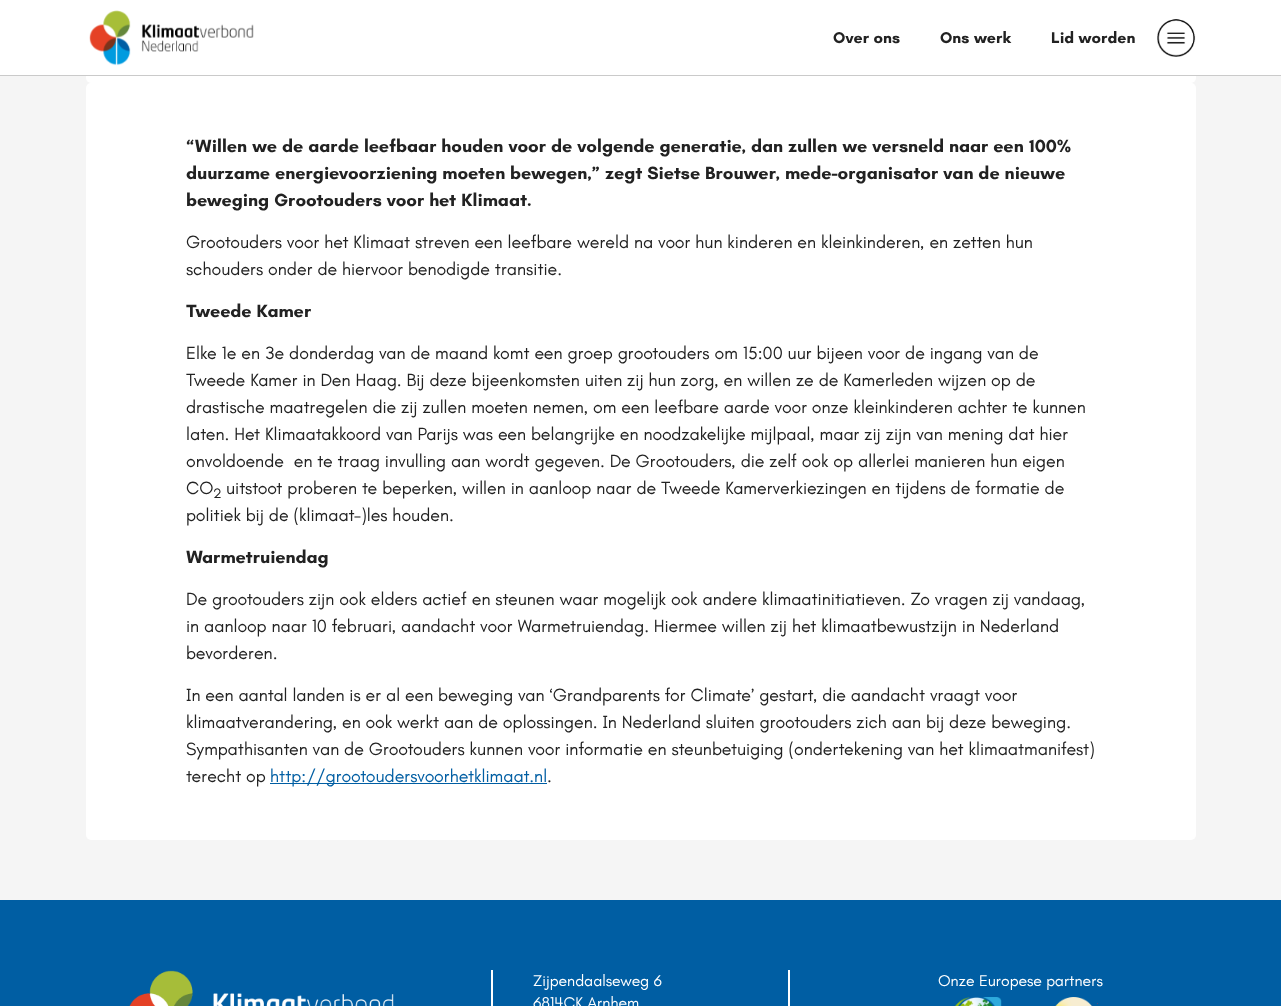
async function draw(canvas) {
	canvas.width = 1281;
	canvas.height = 1006;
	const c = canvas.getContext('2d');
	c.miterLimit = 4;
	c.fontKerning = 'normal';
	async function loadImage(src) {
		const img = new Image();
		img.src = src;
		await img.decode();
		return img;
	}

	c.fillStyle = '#f5f5f5';
	c.fillRect(0, 0, 1281, 1006);
	c.fillStyle = '#fff';
	c.beginPath();
	c.roundRect(86, -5, 1110, 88, 5);
	c.fill();
	c.fillRect(0, 0, 1281, 75);
	c.fillStyle = '#cacaca';
	c.fillRect(0, 75, 1281, 1);
	c.drawImage(await loadImage('img1.png'), 89, 10, 165, 56);
	c.font = 'bold 16px Teachers';
	c.fillStyle = '#222';
	for (const [text, x, y] of [
		['Over ons', 833, 43],
		['Ons werk', 940, 43],
		['Lid worden', 1051, 43],
	]) {
		c.fillText(text, x, y);
	}
	c.drawImage(await loadImage('img2.png'), 1157, 19, 39, 38);
	c.fillStyle = '#fff';
	c.beginPath();
	c.roundRect(86, 83, 1110, 757, 5);
	c.fill();
	c.font = 'bold 18px Teachers';
	c.fillStyle = '#222';
	for (const [text, x, y] of [
		['“Willen we de aarde leefbaar houden voor de volgende generatie, dan zullen we versneld naar een 100%', 186, 152],
		['duurzame energievoorziening moeten bewegen,” zegt Sietse Brouwer, mede-organisator van de nieuwe', 186, 179],
		['beweging Grootouders voor het Klimaat.', 186, 206],
	]) {
		c.fillText(text, x, y);
	}
	c.font = '18px Teachers';
	c.fillText('Grootouders voor het Klimaat streven een leefbare wereld na voor hun kinderen en kleinkinderen, en zetten hun', 186, 248);
	c.fillText('schouders onder de hiervoor benodigde transitie.', 186, 275);
	c.font = 'bold 18px Teachers';
	c.fillText('Tweede Kamer', 186, 317);
	c.font = '18px Teachers';
	for (const [text, x, y] of [
		['Elke 1e en 3e donderdag van de maand komt een groep grootouders om 15:00 uur bijeen voor de ingang van de', 186, 359],
		['Tweede Kamer in Den Haag. Bij deze bijeenkomsten uiten zij hun zorg, en willen ze de Kamerleden wijzen op de', 186, 386],
		['drastische maatregelen die zij zullen moeten nemen, om een leefbare aarde voor onze kleinkinderen achter te kunnen', 186, 413],
		['laten. Het Klimaatakkoord van Parijs was een belangrijke en noodzakelijke mijlpaal, maar zij zijn van mening dat hier', 186, 440],
		['onvoldoende  en te traag invulling aan wordt gegeven. De Grootouders, die zelf ook op allerlei manieren hun eigen', 186, 467],
		['CO', 186, 494],
	]) {
		c.fillText(text, x, y);
	}
	c.font = '14px Teachers';
	c.fillText('2', 213, 498);
	c.font = '18px Teachers';
	c.fillText('uitstoot proberen te beperken, willen in aanloop naar de Tweede Kamerverkiezingen en tijdens de formatie de', 226, 494);
	c.fillText('politiek bij de (klimaat-)les houden.', 186, 521);
	c.font = 'bold 18px Teachers';
	c.fillText('Warmetruiendag', 186, 563);
	c.font = '18px Teachers';
	for (const [text, x, y] of [
		['De grootouders zijn ook elders actief en steunen waar mogelijk ook andere klimaatinitiatieven. Zo vragen zij vandaag,', 186, 605],
		['in aanloop naar 10 februari, aandacht voor Warmetruiendag. Hiermee willen zij het klimaatbewustzijn in Nederland', 186, 632],
		['bevorderen.', 186, 659],
		['In een aantal landen is er al een beweging van ‘Grandparents for Climate’ gestart, die aandacht vraagt voor', 186, 701],
		['klimaatverandering, en ook werkt aan de oplossingen. In Nederland sluiten grootouders zich aan bij deze beweging.', 186, 728],
		['Sympathisanten van de Grootouders kunnen voor informatie en steunbetuiging (ondertekening van het klimaatmanifest)', 186, 755],
		['terecht op', 186, 782],
	]) {
		c.fillText(text, x, y);
	}
	c.fillStyle = '#005ea3';
	c.fillRect(270, 783, 277, 1);
	c.fillText('http://grootoudersvoorhetklimaat.nl', 270, 782);
	c.fillStyle = '#222';
	c.fillText('.', 547, 782);
	c.fillStyle = '#005ea3';
	c.fillRect(0, 900, 1281, 106);
	c.drawImage(await loadImage('img3.png'), 129, 970, 265, 36);
	c.fillStyle = '#fff';
	c.fillRect(788, 970, 2, 36);
	c.fillRect(491, 970, 2, 36);
	c.font = '16px Teachers';
	for (const [text, x, y] of [
		['Zijpendaalseweg 6', 533, 986],
		['6814CK Arnhem', 533, 1008],
		['Onze Europese partners', 938, 986],
	]) {
		c.fillText(text, x, y);
	}
	c.drawImage(await loadImage('img4.png'), 954, 997, 48, 9);
	c.drawImage(await loadImage('img5.png'), 1055, 997, 43, 9);
}

draw(document.querySelector('canvas'));
